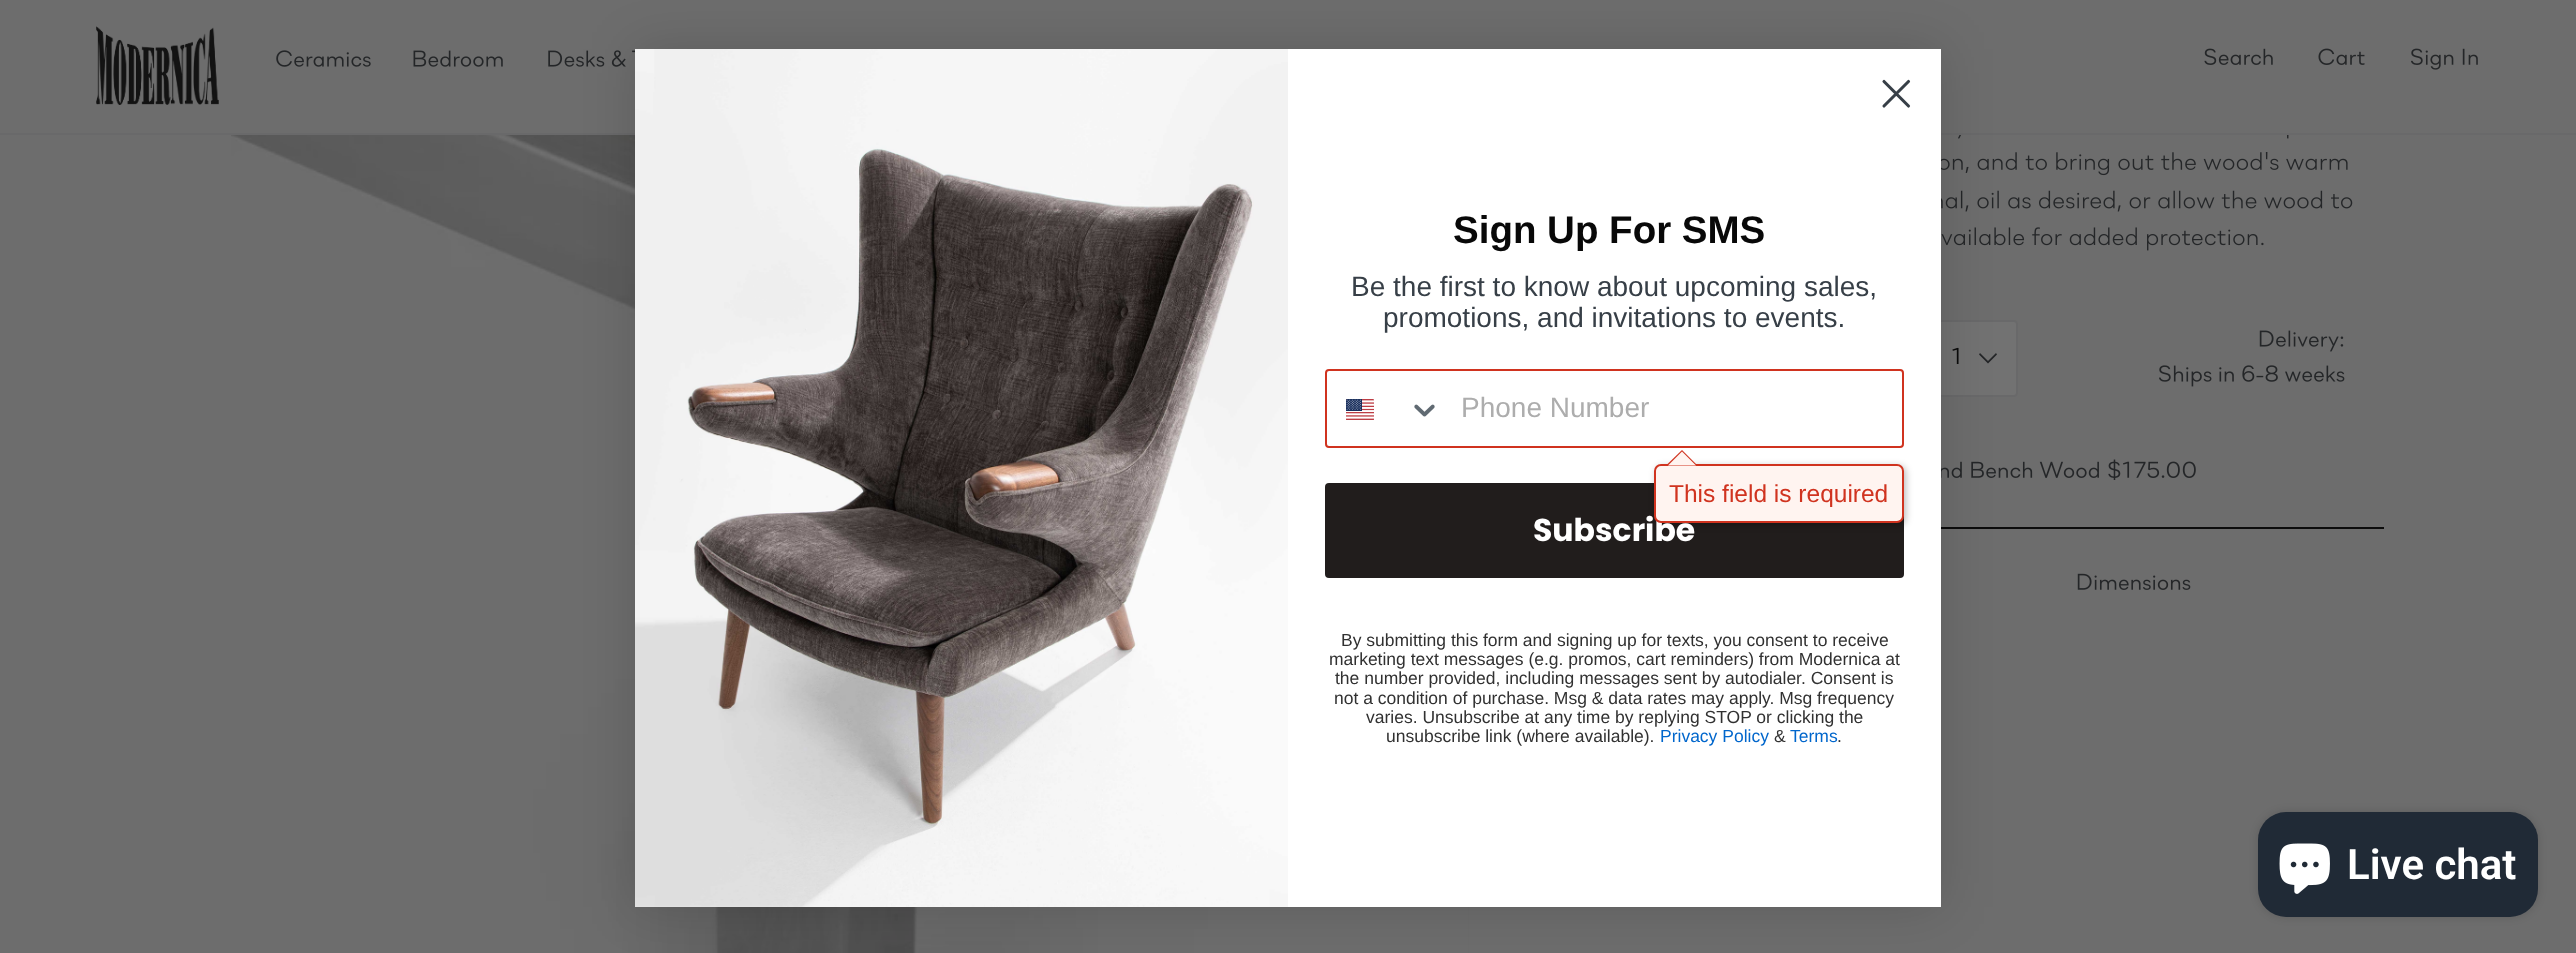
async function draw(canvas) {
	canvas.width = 2576;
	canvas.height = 953;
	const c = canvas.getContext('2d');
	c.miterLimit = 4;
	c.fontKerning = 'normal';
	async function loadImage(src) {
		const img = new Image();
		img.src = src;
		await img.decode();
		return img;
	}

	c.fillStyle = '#6d6d6d';
	c.fillRect(0, 0, 2576, 953);
	c.fillStyle = '#69696a';
	c.fillRect(0, 133, 2576, 2);
	c.drawImage(await loadImage('img1.png'), 96, 26, 123, 79);
	c.drawImage(await loadImage('img2.png'), 276, 50, 95, 17);
	c.drawImage(await loadImage('img3.png'), 413, 50, 90, 17);
	c.drawImage(await loadImage('img4.png'), 548, 50, 87, 17);
	c.drawImage(await loadImage('img5.png'), 2204, 48, 69, 17);
	c.drawImage(await loadImage('img6.png'), 2318, 48, 47, 17);
	c.drawImage(await loadImage('img7.png'), 2411, 48, 67, 22);
	c.drawImage(await loadImage('img8.png'), 231, 135, 1238, 818);
	c.drawImage(await loadImage('img9.png'), 1958, 135, 331, 4);
	c.drawImage(await loadImage('img10.png'), 1941, 152, 407, 24);
	c.drawImage(await loadImage('img11.png'), 1941, 190, 412, 22);
	c.drawImage(await loadImage('img12.png'), 1941, 227, 323, 24);
	c.fillStyle = '#727272';
	c.beginPath();
	c.roundRect(1918, 320, 100, 77, 4);
	c.fill();
	c.fillStyle = '#242628';
	c.beginPath();
	c.moveTo(1988, 363.5);
	c.lineTo(1979, 354.5);
	c.lineTo(1980, 353);
	c.lineTo(1988, 361);
	c.lineTo(1996, 353);
	c.lineTo(1997, 354.5);
	c.closePath();
	c.fill();
	c.beginPath();
	c.roundRect(1919, 321, 98, 75, 3);
	c.strokeStyle = '#69696a';
	c.lineWidth = 2;
	c.stroke();
	c.drawImage(await loadImage('img13.png'), 1952, 347, 7, 17);
	c.drawImage(await loadImage('img14.png'), 2259, 330, 85, 22);
	c.drawImage(await loadImage('img15.png'), 2159, 365, 186, 22);
	c.drawImage(await loadImage('img16.png'), 1941, 461, 158, 17);
	c.drawImage(await loadImage('img17.png'), 2108, 459, 88, 21);
	c.fillStyle = '#0c0c0c';
	c.fillRect(1941, 527, 443, 2);
	c.drawImage(await loadImage('img18.png'), 2077, 573, 114, 17);
	c.fillStyle = '#00000026';
	c.filter = 'blur(26px)';
	c.beginPath();
	c.rect(635, 49, 1306, 858);
	c.fill();
	c.filter = 'none';
	c.fillStyle = '#fff';
	c.fillRect(635, 49, 1306, 858);
	c.beginPath();
	c.moveTo(1884, 81.5);
	c.lineTo(1908.5, 106);
	c.moveTo(1884, 106);
	c.lineTo(1908.5, 81.5);
	c.closePath();
	c.strokeStyle = '#373f47';
	c.lineWidth = 3.1;
	c.lineCap = 'round';
	c.lineJoin = 'round';
	c.stroke();
	c.drawImage(await loadImage('img19.png'), 635, 49, 653, 858);
	c.font = 'bold 38.5px Liberation Sans';
	c.fillStyle = '#080808';
	c.fillText('Sign Up For SMS', 1453, 243);
	c.font = '28px Liberation Sans';
	c.fillStyle = '#373f47';
	c.fillText('Be the first to know about upcoming sales,', 1351, 296);
	c.fillText('promotions, and invitations to events.', 1383, 327);
	c.beginPath();
	c.roundRect(1326, 370, 577, 77, 3);
	c.strokeStyle = '#d0331f';
	c.lineWidth = 2;
	c.lineJoin = 'miter';
	c.stroke();
	c.drawImage(await loadImage('img20.png'), 1346, 399, 28, 21);
	c.drawImage(await loadImage('img21.png'), 1414, 404, 21, 13);
	c.fillStyle = '#adadad';
	c.fillText('Phone Number', 1461, 417);
	c.fillStyle = '#211d1c';
	c.beginPath();
	c.roundRect(1325, 483, 579, 95, 4);
	c.fill();
	c.fillStyle = '#00000042';
	c.filter = 'blur(3.5px)';
	c.beginPath();
	c.roundRect(1656, 466, 250, 59, 7);
	c.fill();
	c.filter = 'none';
	c.font = 'bold 31.5px Poppins';
	c.fillStyle = '#fff';
	c.fillText('Subscribe', 1533, 541);
	c.fillStyle = '#fff4f0';
	c.beginPath();
	c.roundRect(1655, 465, 248, 57, 6);
	c.fill();
	c.stroke();
	c.fillStyle = '#d0331f';
	c.beginPath();
	c.moveTo(1697.5, 465.5);
	c.lineTo(1666, 465.5);
	c.lineTo(1682, 450);
	c.closePath();
	c.fill();
	c.fillStyle = '#fff4f0';
	c.beginPath();
	c.moveTo(1696, 465.5);
	c.lineTo(1668, 465.5);
	c.lineTo(1682, 451.5);
	c.closePath();
	c.fill();
	c.font = '24.5px Liberation Sans';
	c.fillStyle = '#d0331f';
	c.fillText('This field is required', 1669, 502);
	c.font = '17.5px Liberation Sans';
	c.fillStyle = '#313131';
	for (const [text, x, y] of [
		['By submitting this form and signing up for texts, you consent to receive', 1341, 646],
		['marketing text messages (e.g. promos, cart reminders) from Modernica at', 1329, 665],
		['the number provided, including messages sent by autodialer. Consent is', 1335, 684],
		['not a condition of purchase. Msg & data rates may apply. Msg frequency', 1334, 704],
		['varies. Unsubscribe at any time by replying STOP or clicking the', 1366, 723],
		['unsubscribe link (where available).', 1386, 742],
	]) {
		c.fillText(text, x, y);
	}
	c.fillStyle = '#06c';
	c.fillText('Privacy Policy', 1660, 742);
	c.fillStyle = '#313131';
	c.fillText('&', 1774, 742);
	c.fillStyle = '#06c';
	c.fillText('Terms', 1790, 742);
	c.fillStyle = '#313131';
	c.fillText('.', 1837, 742);
	c.fillStyle = '#00000026';
	c.filter = 'blur(4.5px)';
	c.beginPath();
	c.roundRect(2258, 812, 280, 105, 28);
	c.fill();
	c.filter = 'none';
	c.fillStyle = '#202a36';
	c.beginPath();
	c.roundRect(2258, 812, 280, 105, 28);
	c.fill();
	c.drawImage(await loadImage('img22.png'), 2279, 843, 51, 51);
	c.font = '600 42px Roboto';
	c.fillStyle = '#fff';
	c.fillText('Live chat', 2347, 879);
}

draw(document.querySelector('canvas'));
